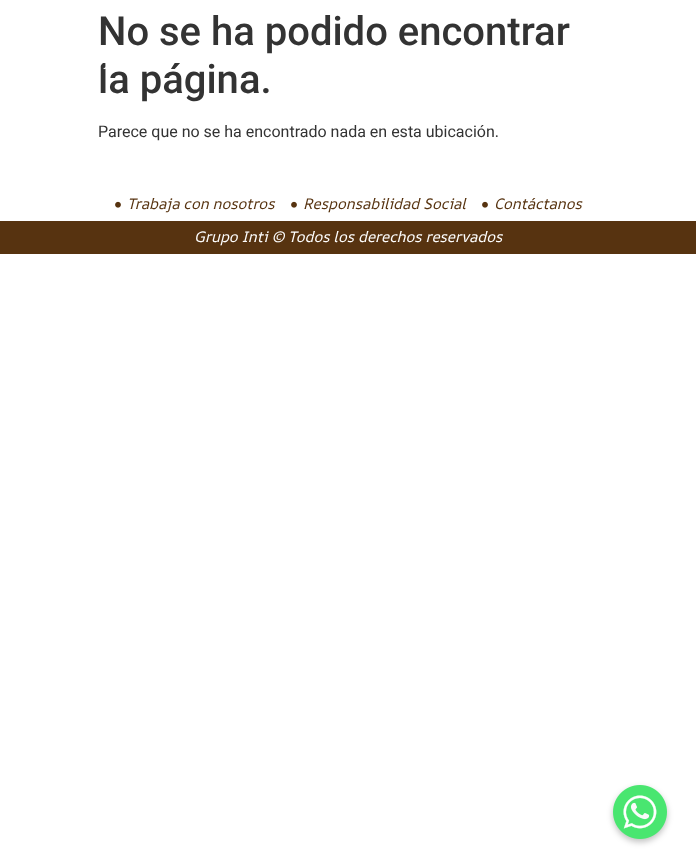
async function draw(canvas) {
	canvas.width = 696;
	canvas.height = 864;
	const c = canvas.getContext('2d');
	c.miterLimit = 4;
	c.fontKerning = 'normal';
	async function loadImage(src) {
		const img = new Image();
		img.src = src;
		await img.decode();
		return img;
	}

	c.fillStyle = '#fff';
	c.fillRect(0, 0, 696, 864);
	c.font = '500 40px Roboto';
	c.fillStyle = '#333';
	c.fillText('No se ha podido encontrar', 98, 45);
	c.fillText('la página.', 98, 93);
	c.font = '16px Roboto';
	c.fillText('Parece que no se ha encontrado nada en esta ubicación.', 98, 137);
	c.drawImage(await loadImage('img1.png'), 100, 63, 6, 7);
	c.drawImage(await loadImage('img2.png'), 115, 201, 6, 7);
	c.font = 'italic 15px AR One Sans';
	c.fillStyle = '#573310';
	c.fillText('Trabaja con nosotros', 127, 209);
	c.drawImage(await loadImage('img2.png'), 291, 201, 6, 7);
	c.fillText('Responsabilidad Social', 303, 209);
	c.drawImage(await loadImage('img2.png'), 482, 201, 6, 7);
	c.fillText('Contáctanos', 494, 209);
	c.fillRect(0, 221, 696, 33);
	c.fillStyle = '#fff';
	c.fillText('Grupo Inti © Todos los derechos reservados', 194, 242);
	c.fillStyle = '#00000040';
	c.filter = 'blur(3px)';
	c.beginPath();
	c.roundRect(613, 788, 54, 54, 27);
	c.fill();
	c.filter = 'none';
	c.drawImage(await loadImage('img3.png'), 613, 785, 54, 54);
}

draw(document.querySelector('canvas'));
